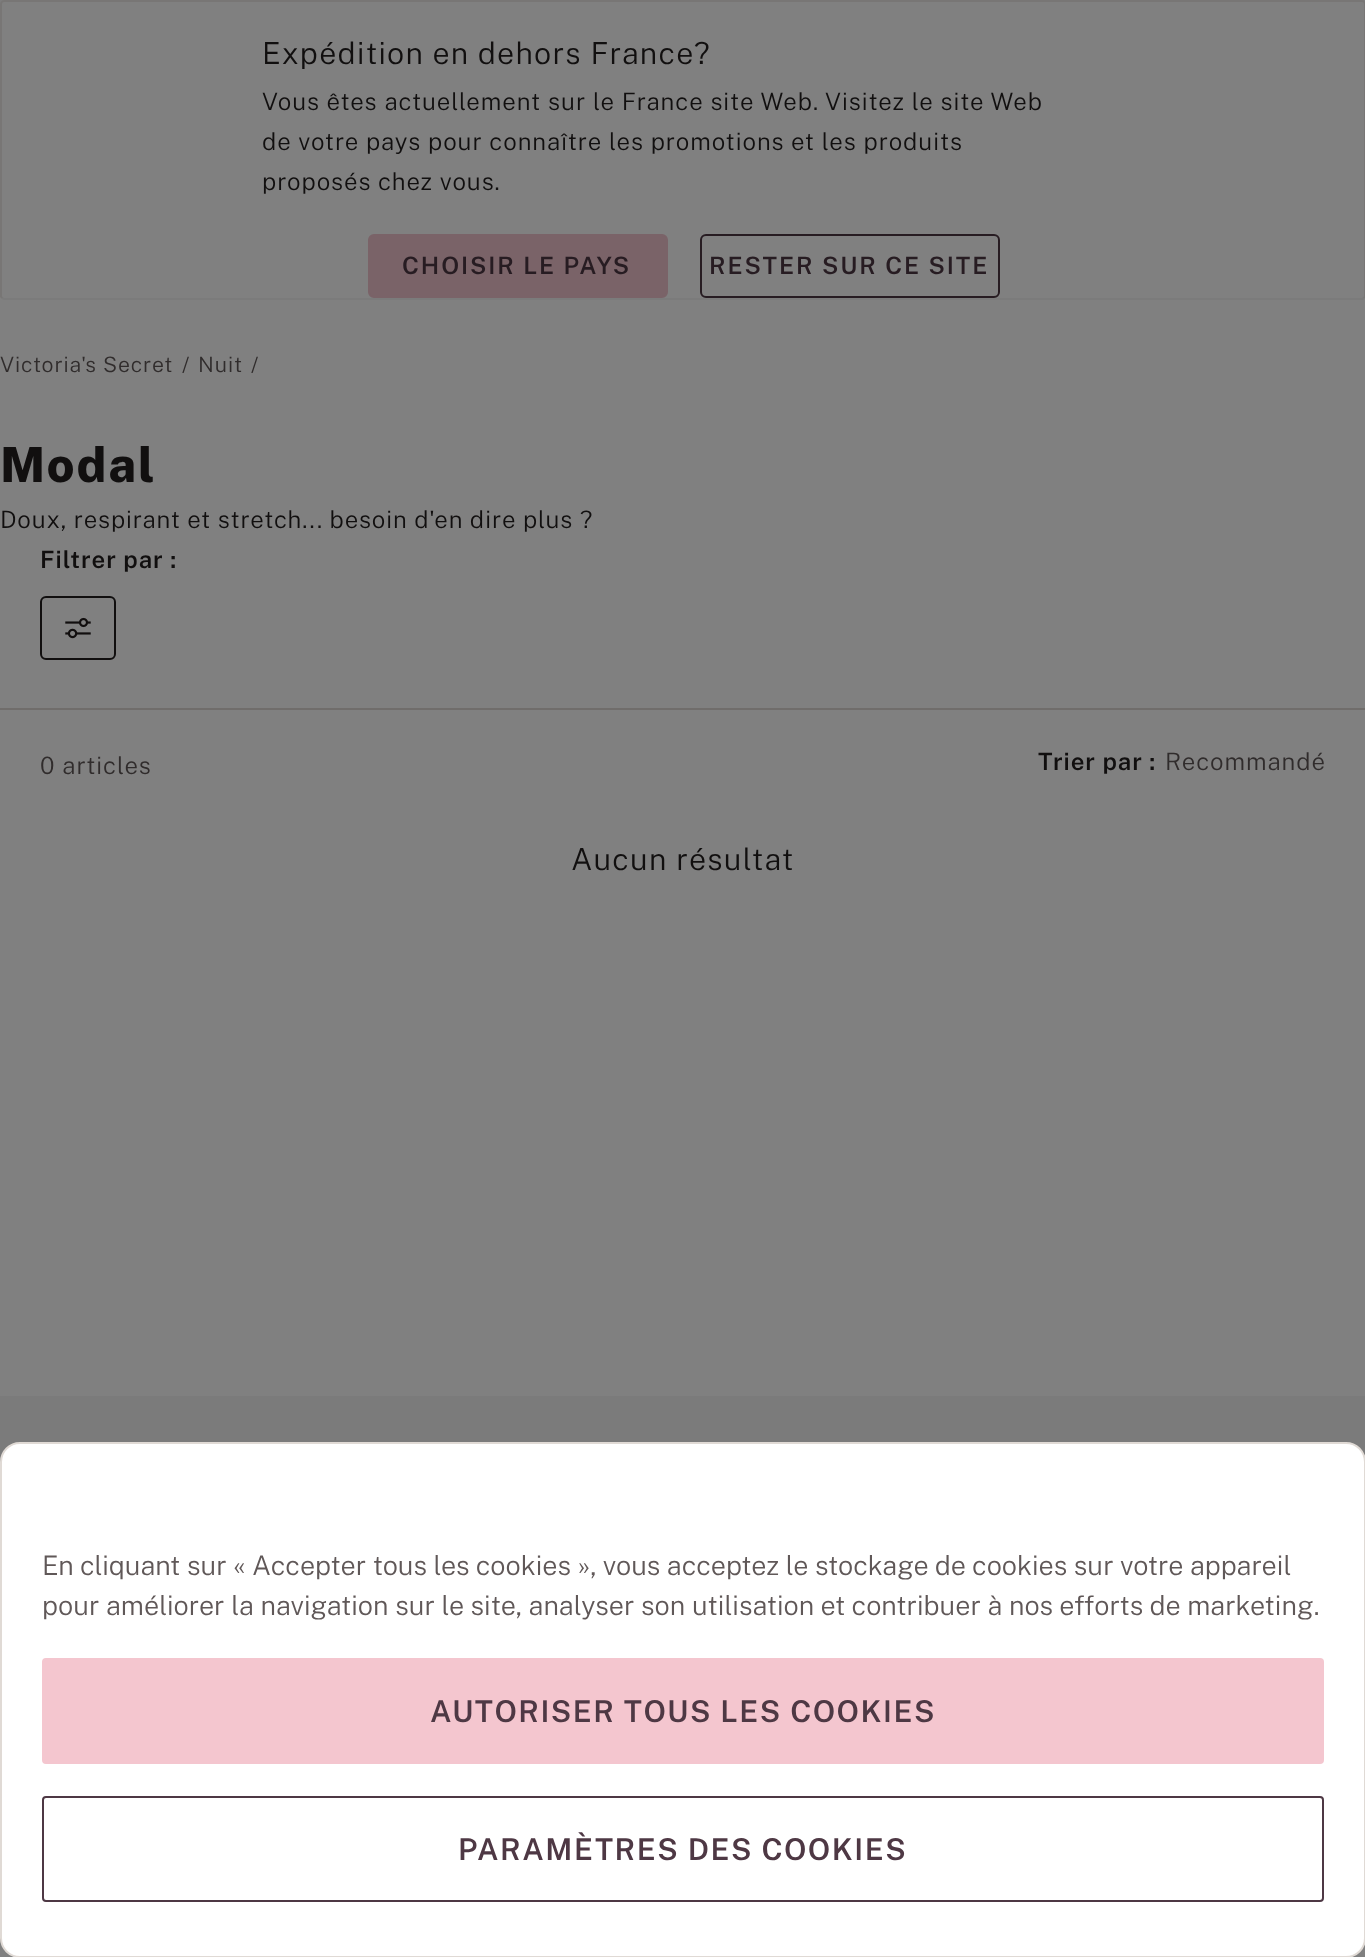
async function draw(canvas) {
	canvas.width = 1365;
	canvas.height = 1957;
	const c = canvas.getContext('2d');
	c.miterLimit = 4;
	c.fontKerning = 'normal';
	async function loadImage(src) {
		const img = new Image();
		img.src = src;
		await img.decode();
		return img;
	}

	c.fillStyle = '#808080';
	c.fillRect(0, 0, 1365, 1957);
	c.fillStyle = '#7d7c7d';
	c.fillRect(0, 0, 1365, 4);
	c.fillStyle = '#808080';
	c.beginPath();
	c.roundRect(0, 0, 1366, 300, 4);
	c.fill();
	c.beginPath();
	c.moveTo(1364, 298);
	c.lineTo(1362, 299);
	c.lineTo(4, 299);
	c.lineTo(2, 298);
	c.strokeStyle = '#7b7b7b';
	c.lineWidth = 2;
	c.stroke();
	c.beginPath();
	c.moveTo(2, 298);
	c.lineTo(1, 296.5);
	c.lineTo(1, 4);
	c.bezierCurveTo(1, 2.5, 2.5, 1, 4, 1);
	c.lineTo(1362, 1);
	c.bezierCurveTo(1363.5, 1, 1365, 2.5, 1365, 4);
	c.lineTo(1365, 296.5);
	c.lineTo(1364, 298);
	c.strokeStyle = '#787675';
	c.stroke();
	c.letterSpacing = '1.25px';
	c.font = '300 30.4px Public Sans';
	c.fillStyle = '#110f0f';
	c.fillText('Expédition en dehors France', 262, 64);
	c.fillText('?', 694, 64);
	c.letterSpacing = '0.95px';
	c.font = '300 24px Public Sans';
	for (const [text, x, y] of [
		['Vous êtes actuellement sur le France site Web. Visitez le site Web', 262, 110],
		['de votre pays pour connaître les promotions et les produits', 262, 150],
		['proposés chez vous.', 262, 190],
	]) {
		c.fillText(text, x, y);
	}
	c.fillStyle = '#7a6368';
	c.beginPath();
	c.roundRect(369, 235, 298, 62, 5);
	c.fill();
	c.strokeStyle = '#7a6368';
	c.stroke();
	c.letterSpacing = '1.9px';
	c.font = '600 24px Public Sans';
	c.fillStyle = '#271c22';
	c.fillText('CHOISIR LE PAYS', 402, 274);
	c.beginPath();
	c.roundRect(701, 235, 298, 62, 5);
	c.strokeStyle = '#271c22';
	c.stroke();
	c.fillText('RESTER SUR CE SITE', 709, 274);
	c.letterSpacing = '0.88px';
	c.font = '300 21.25px Public Sans';
	c.fillStyle = '#302c2c';
	for (const [text, x, y] of [
		['Victoria\'s Secret', 0, 372],
		['/', 182, 372],
		['Nuit', 198, 372],
		['/', 251, 372],
	]) {
		c.fillText(text, x, y);
	}
	c.letterSpacing = '2px';
	c.font = '800 48.5px Public Sans';
	c.fillStyle = '#110f0f';
	c.fillText('Modal', 0, 482);
	c.letterSpacing = '0.88px';
	c.font = '300 24px Public Sans';
	c.fillText('Doux, respirant et stretch... besoin d\'en dire plus ?', 0, 528);
	c.letterSpacing = '0.95px';
	c.font = '600 24px Public Sans';
	c.fillText('Filtrer par :', 40, 568);
	c.beginPath();
	c.roundRect(41, 597, 74, 62, 5);
	c.strokeStyle = '#110f0f';
	c.stroke();
	c.drawImage(await loadImage('img1.png'), 65, 617, 26, 22);
	c.fillStyle = '#706d6b';
	c.fillRect(0, 708, 1365, 2);
	c.font = '300 24px Public Sans';
	c.fillStyle = '#302c2c';
	c.fillText('0 articles', 40, 774);
	c.font = '600 24px Public Sans';
	c.fillStyle = '#110f0f';
	c.fillText('Trier par :', 1038, 770);
	c.font = '300 24px Public Sans';
	c.fillStyle = '#302c2c';
	c.fillText('Recommandé', 1165, 770);
	c.letterSpacing = '1.25px';
	c.font = '300 30.4px Public Sans';
	c.fillStyle = '#110f0f';
	c.fillText('Aucun résultat', 571, 870);
	c.fillStyle = '#7b7b7b';
	c.fillRect(0, 1396, 1365, 66);
	c.fillStyle = '#fff';
	c.beginPath();
	c.roundRect(1, 1443, 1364, 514, 19);
	c.fill();
	c.strokeStyle = '#e0dad5';
	c.stroke();
	c.letterSpacing = '0px';
	c.font = '300 27px Public Sans';
	c.fillStyle = '#605858';
	c.fillText('En cliquant sur « Accepter tous les cookies », vous acceptez le stockage de cookies sur votre appareil', 42, 1575);
	c.fillText('pour améliorer la navigation sur le site, analyser son utilisation et contribuer à nos efforts de marketing.', 42, 1615);
	c.fillStyle = '#f4c6cf';
	c.beginPath();
	c.roundRect(43, 1659, 1280, 104, 3);
	c.fill();
	c.strokeStyle = '#f4c6cf';
	c.stroke();
	c.letterSpacing = '1.5px';
	c.font = '600 30px Public Sans';
	c.fillStyle = '#4e3844';
	c.fillText('AUTORISER TOUS LES COOKIES', 430, 1722);
	c.beginPath();
	c.roundRect(43, 1797, 1280, 104, 3);
	c.strokeStyle = '#4e3844';
	c.stroke();
	c.fillText('PARAMÈTRES DES COOKIES', 458, 1860);
}

draw(document.querySelector('canvas'));
